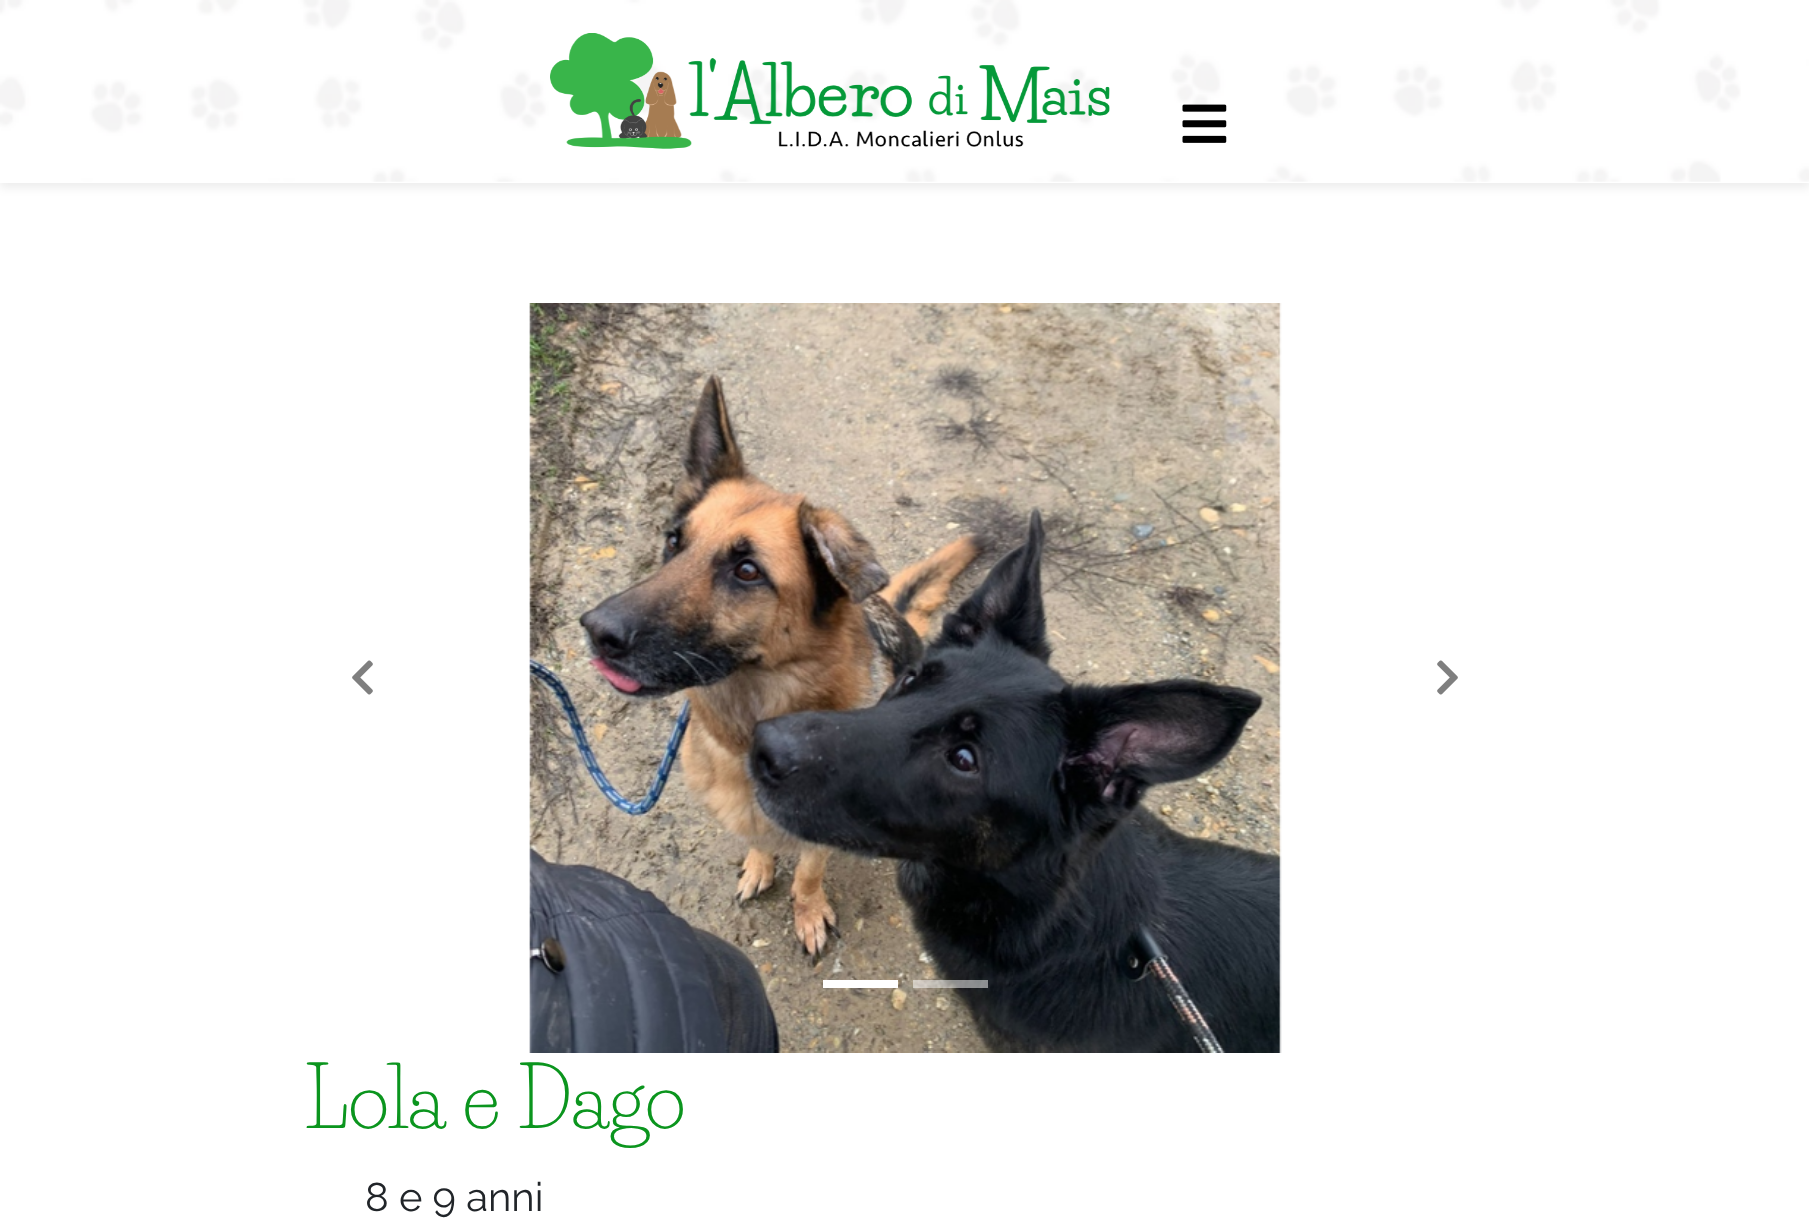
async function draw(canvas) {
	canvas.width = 1809;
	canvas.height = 1228;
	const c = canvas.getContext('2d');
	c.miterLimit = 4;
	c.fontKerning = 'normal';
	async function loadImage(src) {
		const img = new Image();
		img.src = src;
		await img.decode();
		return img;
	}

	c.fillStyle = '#fff';
	c.fillRect(0, 0, 1809, 1228);
	c.fillStyle = '#00000012';
	c.filter = 'blur(5px)';
	c.beginPath();
	c.rect(0, 5, 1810, 183);
	c.fill();
	c.filter = 'none';
	c.fillStyle = '#fff';
	c.fillRect(0, 0, 1809, 183);
	c.drawImage(await loadImage('img1.png'), 0, 0, 1809, 182);
	c.drawImage(await loadImage('img2.png'), 550, 33, 560, 116);
	c.drawImage(await loadImage('img3.png'), 1182, 104, 45, 39);
	c.drawImage(await loadImage('img4.png'), 352, 660, 21, 35);
	c.drawImage(await loadImage('img5.png'), 529, 303, 753, 750);
	c.drawImage(await loadImage('img6.png'), 1437, 660, 21, 35);
	c.fillRect(823, 980, 75, 8);
	c.fillStyle = '#ffffff80';
	c.fillRect(913, 980, 75, 8);
	c.font = '80px Life Savers';
	c.fillStyle = '#0b951e';
	c.fillText('Lola e Dago', 305, 1128);
	c.font = '40px Raleway';
	c.fillStyle = '#212529';
	c.fillText('8 e 9 anni', 365, 1211);
}

draw(document.querySelector('canvas'));
